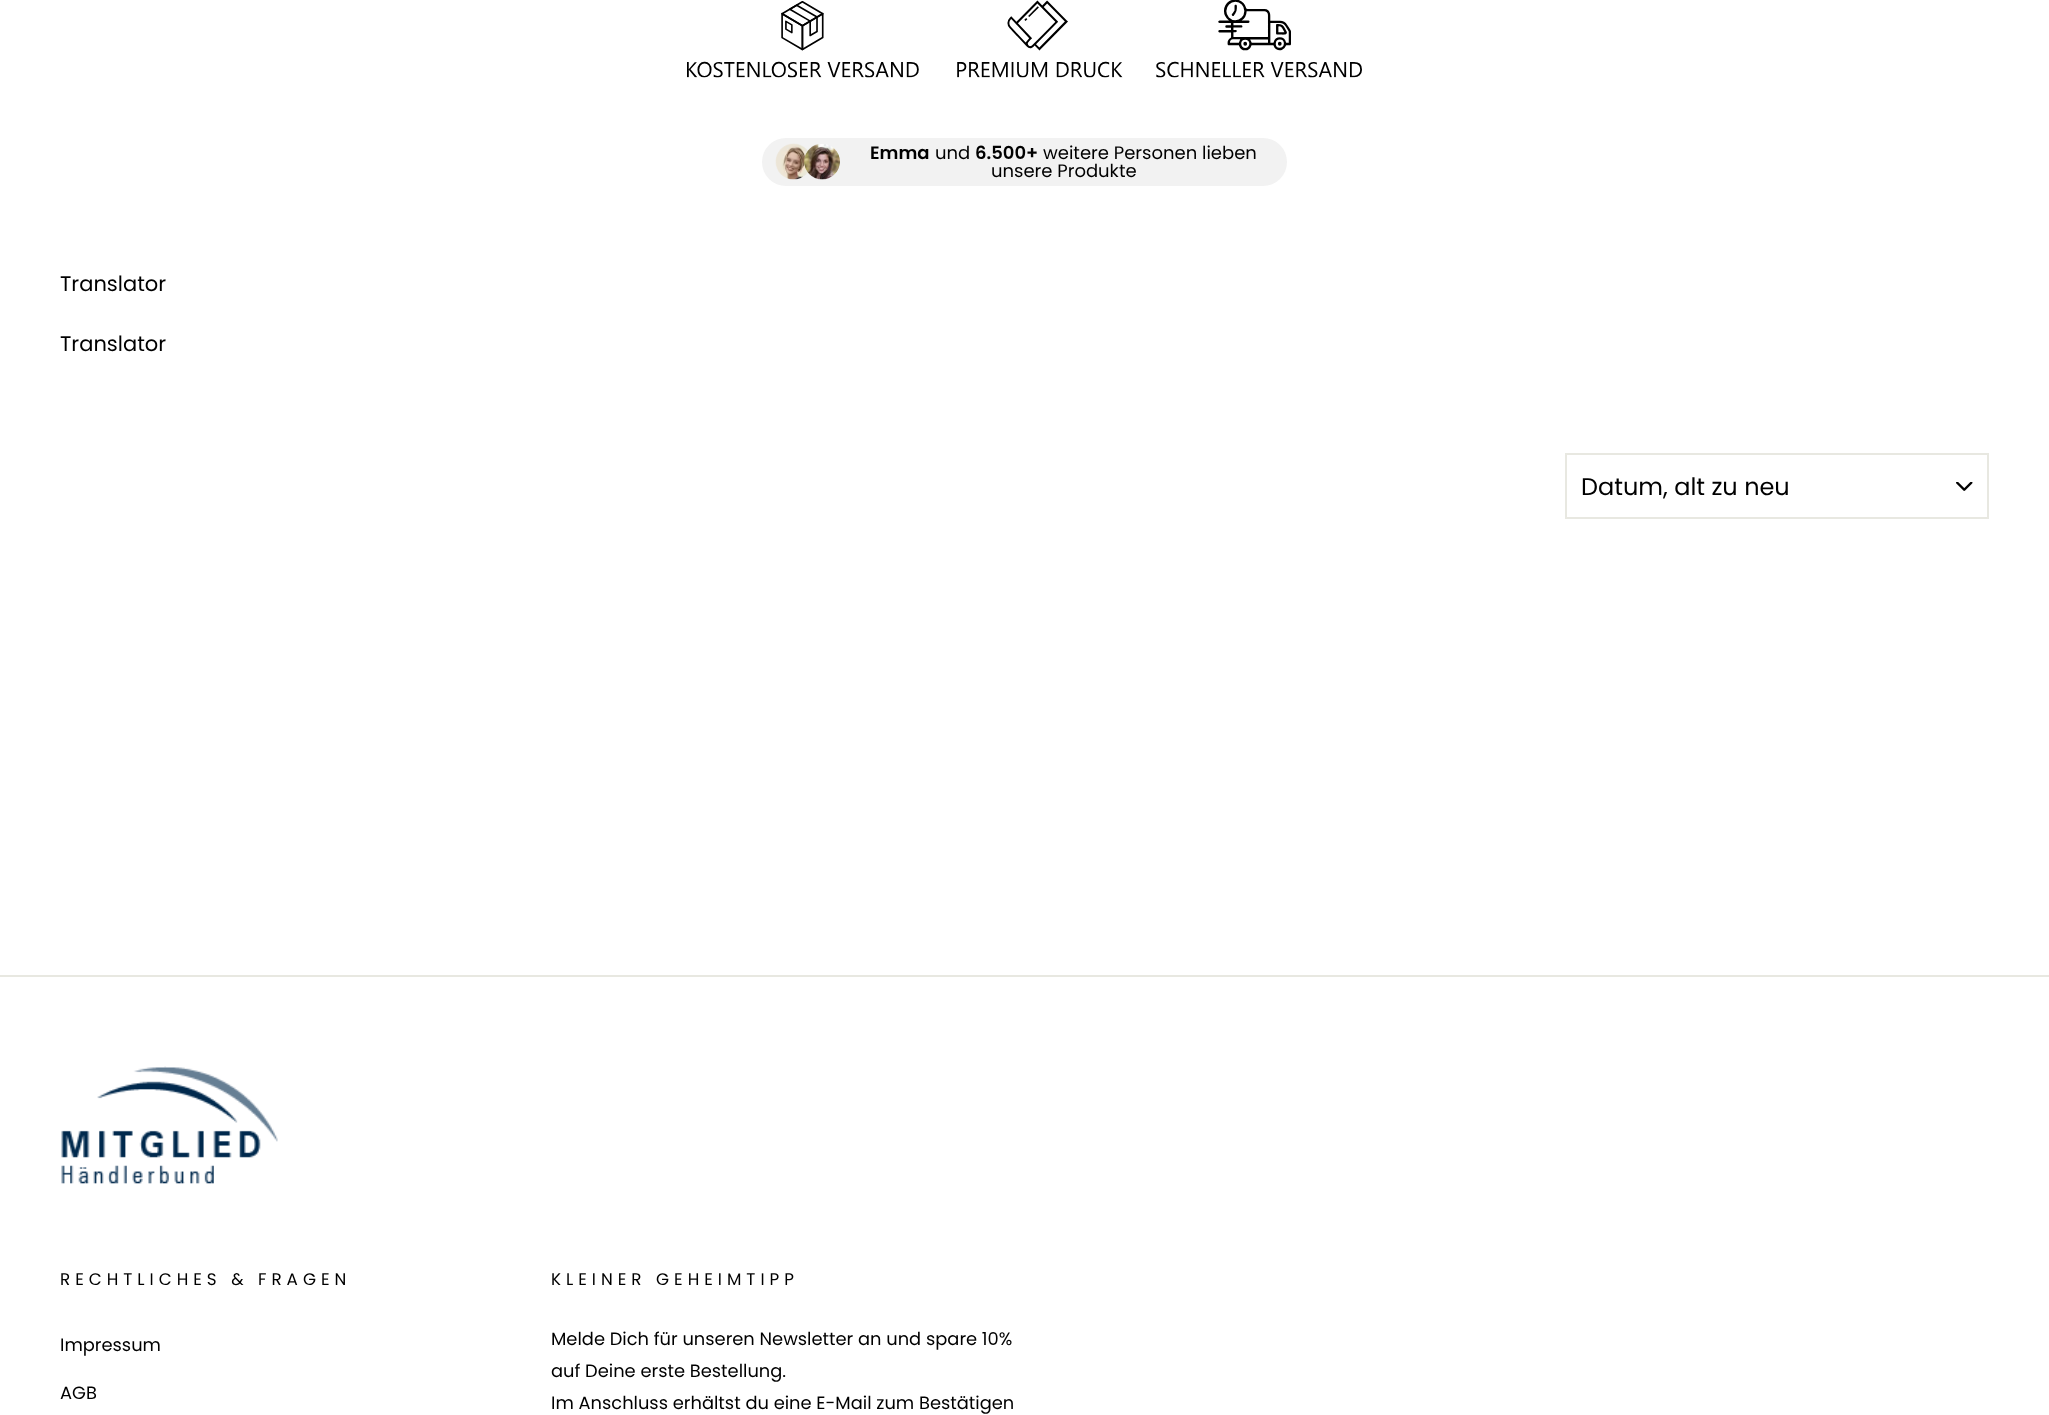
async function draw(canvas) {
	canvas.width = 2049;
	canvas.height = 1415;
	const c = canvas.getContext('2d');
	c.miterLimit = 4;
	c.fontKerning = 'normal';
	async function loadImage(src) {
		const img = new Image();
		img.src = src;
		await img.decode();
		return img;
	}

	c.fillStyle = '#fff';
	c.fillRect(0, 0, 2049, 1415);
	c.drawImage(await loadImage('img1.png'), 687, 0, 675, 78);
	c.fillStyle = '#f2f2f2';
	c.beginPath();
	c.roundRect(762, 138, 525, 48, 24);
	c.fill();
	c.drawImage(await loadImage('img2.png'), 775, 143, 33, 37);
	c.drawImage(await loadImage('img3.png'), 804, 144, 36, 36);
	c.font = '600 18px Poppins';
	c.fillStyle = '#000';
	c.fillText('Emma', 870, 159);
	c.font = '18px Poppins';
	c.fillText('und', 935, 159);
	c.font = '600 18px Poppins';
	c.fillText('6.500+', 975, 159);
	c.font = '18px Poppins';
	c.fillText('weitere Personen lieben', 1043, 159);
	c.fillText('unsere Produkte', 991, 177);
	c.font = '21px Poppins';
	c.fillText('Translator', 60, 291);
	c.fillText('Translator', 60, 351);
	c.drawImage(await loadImage('img4.png'), 1956, 482, 17, 9);
	c.strokeStyle = '#e8e8e1';
	c.lineWidth = 2;
	c.strokeRect(1566, 454, 422, 64);
	c.font = '24px Poppins';
	c.fillText('Datum, alt zu neu', 1581, 495);
	c.fillStyle = '#e8e8e1';
	c.fillRect(0, 975, 2049, 2);
	c.drawImage(await loadImage('img5.png'), 61, 1066, 217, 118);
	c.letterSpacing = '5px';
	c.font = '16.75px Poppins';
	c.fillStyle = '#000';
	c.fillText('RECHTLICHES & FRAGEN', 60, 1285);
	c.letterSpacing = '0px';
	c.font = '17.85px Poppins';
	c.fillText('Impressum', 60, 1351);
	c.fillText('AGB', 60, 1399);
	c.letterSpacing = '5px';
	c.font = '16.75px Poppins';
	c.fillText('KLEINER GEHEIMTIPP', 551, 1285);
	c.letterSpacing = '0px';
	c.font = '17.85px Poppins';
	for (const [text, x, y] of [
		['Melde Dich für unseren Newsletter an und spare 10%', 551, 1345],
		['auf Deine erste Bestellung.', 551, 1377],
		['Im Anschluss erhältst du eine E-Mail zum Bestätigen', 551, 1409],
	]) {
		c.fillText(text, x, y);
	}
}

draw(document.querySelector('canvas'));
